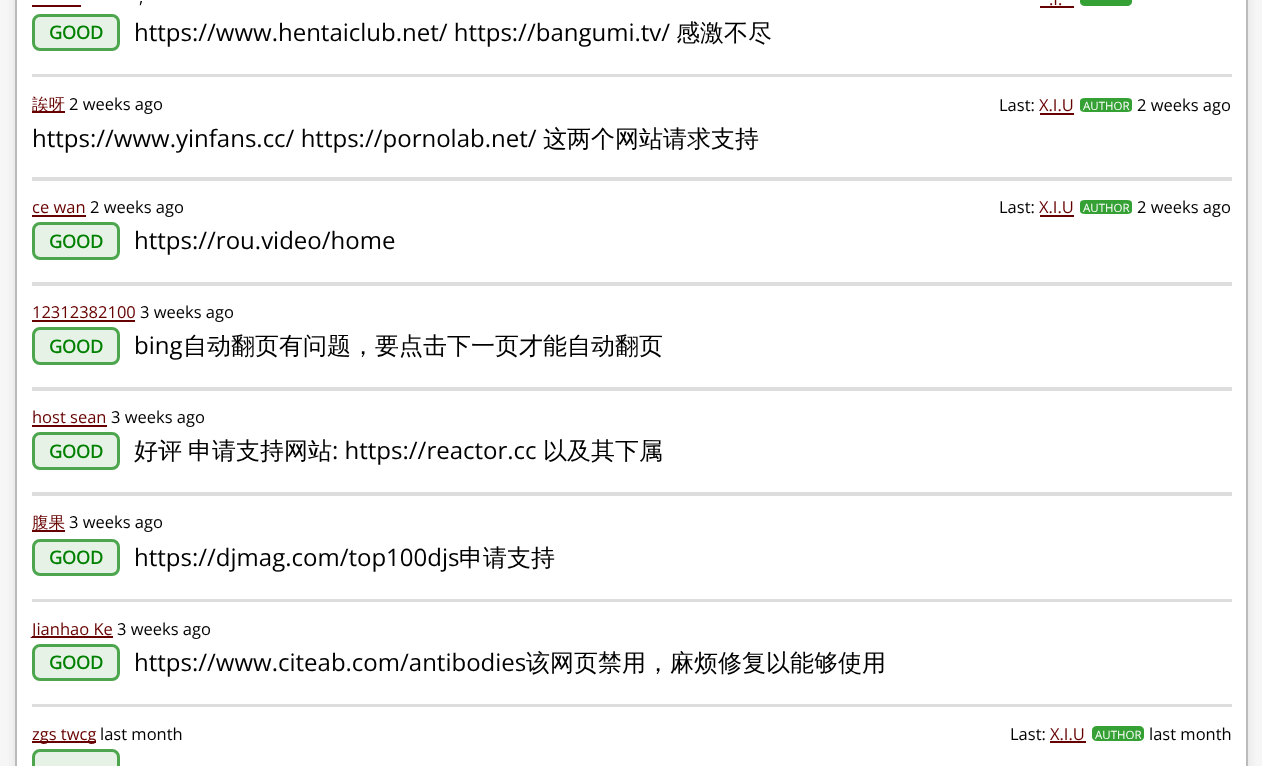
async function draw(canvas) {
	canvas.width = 1262;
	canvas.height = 766;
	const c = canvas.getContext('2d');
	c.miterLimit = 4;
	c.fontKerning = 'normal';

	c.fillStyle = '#f6f6f6';
	c.fillRect(0, 0, 1262, 766);
	c.fillStyle = '#ddd';
	c.filter = 'blur(4px)';
	c.beginPath();
	c.roundRect(15, -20, 1233, 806, 8);
	c.fill();
	c.filter = 'none';
	c.fillStyle = '#fff';
	c.beginPath();
	c.rect(16, -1, 1231, 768);
	c.fill();
	c.strokeStyle = '#bbb';
	c.lineWidth = 2;
	c.stroke();
	c.fillStyle = '#ddd';
	c.fillRect(32, 74, 1200, 3);
	c.fillStyle = '#670000';
	c.fillRect(32, 5, 49, 2);
	c.font = '16.5px Open Sans';
	c.fillStyle = '#000';
	c.fillText(',', 139, 3);
	c.fillStyle = '#670000';
	c.fillText('.I.', 1049, 5);
	c.fillRect(1040, 6, 34, 2);
	c.fillStyle = '#35a135';
	c.beginPath();
	c.moveTo(1085, -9);
	c.lineTo(1127, -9);
	c.bezierCurveTo(1130, -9, 1132, -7, 1132, -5);
	c.lineTo(1132, 2);
	c.bezierCurveTo(1132, 4, 1130, 6, 1127, 6);
	c.lineTo(1085, 6);
	c.bezierCurveTo(1082, 6, 1080, 4, 1080, 2);
	c.lineTo(1080, -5);
	c.bezierCurveTo(1080, -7, 1082, -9, 1085, -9);
	c.closePath();
	c.fill();
	c.fillStyle = '#e6f2e6';
	c.beginPath();
	c.roundRect(33.5, 15.5, 85, 34, 6.5);
	c.fill();
	c.strokeStyle = '#4da64d';
	c.lineWidth = 3;
	c.stroke();
	c.font = 'bold 18px Open Sans';
	c.fillStyle = '#008000';
	c.fillText('GOOD', 49, 39);
	c.font = '24px Open Sans';
	c.fillStyle = '#000';
	c.fillText('https://www.hentaiclub.net/ https://bangumi.tv/', 134, 41);
	c.font = '500 24px WenQuanYi Zen Hei';
	c.fillText('感激不尽', 676, 41);
	c.fillStyle = '#ddd';
	c.fillRect(32, 177, 1200, 4);
	c.fillStyle = '#670000';
	c.fillRect(32, 111, 33, 2);
	c.font = '500 16.5px WenQuanYi Zen Hei';
	c.fillText('誒呀', 32, 110);
	c.font = '16.5px Open Sans';
	c.fillStyle = '#000';
	c.fillText('2 weeks ago', 69, 110);
	c.fillText('Last:', 999, 111);
	c.fillStyle = '#670000';
	c.fillText('X.I.U', 1039, 111);
	c.fillRect(1040, 113, 34, 2);
	c.fillStyle = '#35a135';
	c.beginPath();
	c.moveTo(1085, 98);
	c.lineTo(1127, 98);
	c.bezierCurveTo(1130, 98, 1132, 99, 1132, 101);
	c.lineTo(1132, 109);
	c.bezierCurveTo(1132, 111, 1130, 112, 1127, 112);
	c.lineTo(1085, 112);
	c.bezierCurveTo(1082, 112, 1080, 111, 1080, 109);
	c.lineTo(1080, 101);
	c.bezierCurveTo(1080, 99, 1082, 98, 1085, 98);
	c.closePath();
	c.fill();
	c.font = '11.5px Open Sans';
	c.fillStyle = '#fff';
	c.fillText('AUTHOR', 1083, 110);
	c.font = '16.5px Open Sans';
	c.fillStyle = '#000';
	c.fillText('2 weeks ago', 1137, 111);
	c.font = '24px Open Sans';
	c.fillText('https://www.yinfans.cc/ https://pornolab.net/', 32, 147);
	c.font = '500 24px WenQuanYi Zen Hei';
	c.fillText('这两个网站请求支持', 543, 147);
	c.fillStyle = '#ddd';
	c.fillRect(32, 282, 1200, 4);
	c.font = '16.5px Open Sans';
	c.fillStyle = '#670000';
	c.fillText('ce wan', 32, 213);
	c.fillRect(32, 215, 54, 2);
	c.fillStyle = '#000';
	c.fillText('2 weeks ago', 90, 213);
	c.fillText('Last:', 999, 213);
	c.fillStyle = '#670000';
	c.fillText('X.I.U', 1039, 213);
	c.fillRect(1040, 215, 34, 2);
	c.fillStyle = '#35a135';
	c.beginPath();
	c.moveTo(1085, 200);
	c.lineTo(1127, 200);
	c.bezierCurveTo(1130, 200, 1132, 201, 1132, 203);
	c.lineTo(1132, 211);
	c.bezierCurveTo(1132, 213, 1130, 214, 1127, 214);
	c.lineTo(1085, 214);
	c.bezierCurveTo(1082, 214, 1080, 213, 1080, 211);
	c.lineTo(1080, 203);
	c.bezierCurveTo(1080, 201, 1082, 200, 1085, 200);
	c.closePath();
	c.fill();
	c.font = '11.5px Open Sans';
	c.fillStyle = '#fff';
	c.fillText('AUTHOR', 1083, 212);
	c.font = '16.5px Open Sans';
	c.fillStyle = '#000';
	c.fillText('2 weeks ago', 1137, 213);
	c.fillStyle = '#e6f2e6';
	c.beginPath();
	c.roundRect(33.5, 223.5, 85, 35, 6.5);
	c.fill();
	c.stroke();
	c.font = 'bold 18px Open Sans';
	c.fillStyle = '#008000';
	c.fillText('GOOD', 49, 248);
	c.font = '24px Open Sans';
	c.fillStyle = '#000';
	c.fillText('https://rou.video/home', 134, 249);
	c.fillStyle = '#ddd';
	c.fillRect(32, 387, 1200, 4);
	c.font = '16.5px Open Sans';
	c.fillStyle = '#670000';
	c.fillText('12312382100', 32, 318);
	c.fillRect(32, 320, 103, 2);
	c.fillStyle = '#000';
	c.fillText('3 weeks ago', 140, 318);
	c.fillStyle = '#e6f2e6';
	c.beginPath();
	c.roundRect(33.5, 328.5, 85, 35, 6.5);
	c.fill();
	c.stroke();
	c.font = 'bold 18px Open Sans';
	c.fillStyle = '#008000';
	c.fillText('GOOD', 49, 353);
	c.font = '24px Open Sans';
	c.fillStyle = '#000';
	c.fillText('bing', 134, 354);
	c.font = '500 24px WenQuanYi Zen Hei';
	c.fillText('自动翻页有问题，要点击下一页才能自动翻页', 183, 354);
	c.fillStyle = '#ddd';
	c.fillRect(32, 492, 1200, 4);
	c.font = '16.5px Open Sans';
	c.fillStyle = '#670000';
	c.fillText('host sean', 32, 423);
	c.fillRect(32, 425, 75, 2);
	c.fillStyle = '#000';
	c.fillText('3 weeks ago', 111, 423);
	c.fillStyle = '#e6f2e6';
	c.beginPath();
	c.roundRect(33.5, 433.5, 85, 35, 6.5);
	c.fill();
	c.stroke();
	c.font = 'bold 18px Open Sans';
	c.fillStyle = '#008000';
	c.fillText('GOOD', 49, 458);
	c.font = '500 24px WenQuanYi Zen Hei';
	c.fillStyle = '#000';
	c.fillText('好评', 134, 459);
	c.fillText('申请支持网站', 188, 459);
	c.font = '24px Open Sans';
	c.fillText(': https://reactor.cc', 332, 459);
	c.font = '500 24px WenQuanYi Zen Hei';
	c.fillText('以及其下属', 543, 459);
	c.fillStyle = '#ddd';
	c.fillRect(32, 599, 1200, 3);
	c.fillStyle = '#670000';
	c.fillRect(32, 530, 33, 2);
	c.font = '500 16.5px WenQuanYi Zen Hei';
	c.fillText('腹果', 32, 528);
	c.font = '16.5px Open Sans';
	c.fillStyle = '#000';
	c.fillText('3 weeks ago', 69, 528);
	c.fillStyle = '#e6f2e6';
	c.beginPath();
	c.roundRect(33.5, 540.5, 85, 34, 6.5);
	c.fill();
	c.stroke();
	c.font = 'bold 18px Open Sans';
	c.fillStyle = '#008000';
	c.fillText('GOOD', 49, 564);
	c.font = '24px Open Sans';
	c.fillStyle = '#000';
	c.fillText('https://djmag.com/top100djs', 134, 566);
	c.font = '500 24px WenQuanYi Zen Hei';
	c.fillText('申请支持', 459, 566);
	c.fillStyle = '#ddd';
	c.fillRect(32, 704, 1200, 3);
	c.fillStyle = '#670000';
	c.fillRect(32, 636, 81, 2);
	c.font = '16.5px Open Sans';
	c.fillText('Jianhao Ke', 32, 635);
	c.fillStyle = '#000';
	c.fillText('3 weeks ago', 117, 635);
	c.fillStyle = '#e6f2e6';
	c.beginPath();
	c.roundRect(33.5, 645.5, 85, 34, 6.5);
	c.fill();
	c.stroke();
	c.font = 'bold 18px Open Sans';
	c.fillStyle = '#008000';
	c.fillText('GOOD', 49, 669);
	c.font = '24px Open Sans';
	c.fillStyle = '#000';
	c.fillText('https://www.citeab.com/antibodies', 134, 671);
	c.font = '500 24px WenQuanYi Zen Hei';
	c.fillText('该网页禁用，麻烦修复以能够使用', 526, 671);
	c.fillStyle = '#670000';
	c.fillRect(32, 741, 64, 2);
	c.font = '16.5px Open Sans';
	c.fillText('zgs twcg', 32, 740);
	c.fillStyle = '#000';
	c.fillText('last month', 100, 740);
	c.fillText('Last:', 1010, 740);
	c.fillStyle = '#670000';
	c.fillText('X.I.U', 1050, 740);
	c.fillRect(1050, 741, 36, 2);
	c.fillStyle = '#35a135';
	c.beginPath();
	c.moveTo(1097, 726);
	c.lineTo(1139, 726);
	c.bezierCurveTo(1142, 726, 1144, 728, 1144, 730);
	c.lineTo(1144, 737);
	c.bezierCurveTo(1144, 739, 1142, 741, 1139, 741);
	c.lineTo(1097, 741);
	c.bezierCurveTo(1094, 741, 1092, 739, 1092, 737);
	c.lineTo(1092, 730);
	c.bezierCurveTo(1092, 728, 1094, 726, 1097, 726);
	c.closePath();
	c.fill();
	c.font = '11.5px Open Sans';
	c.fillStyle = '#fff';
	c.fillText('AUTHOR', 1095, 739);
	c.font = '16.5px Open Sans';
	c.fillStyle = '#000';
	c.fillText('last month', 1149, 740);
	c.fillStyle = '#e6f2e6';
	c.beginPath();
	c.roundRect(33.5, 750.5, 85, 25, 6.5);
	c.fill();
	c.stroke();
}

draw(document.querySelector('canvas'));
